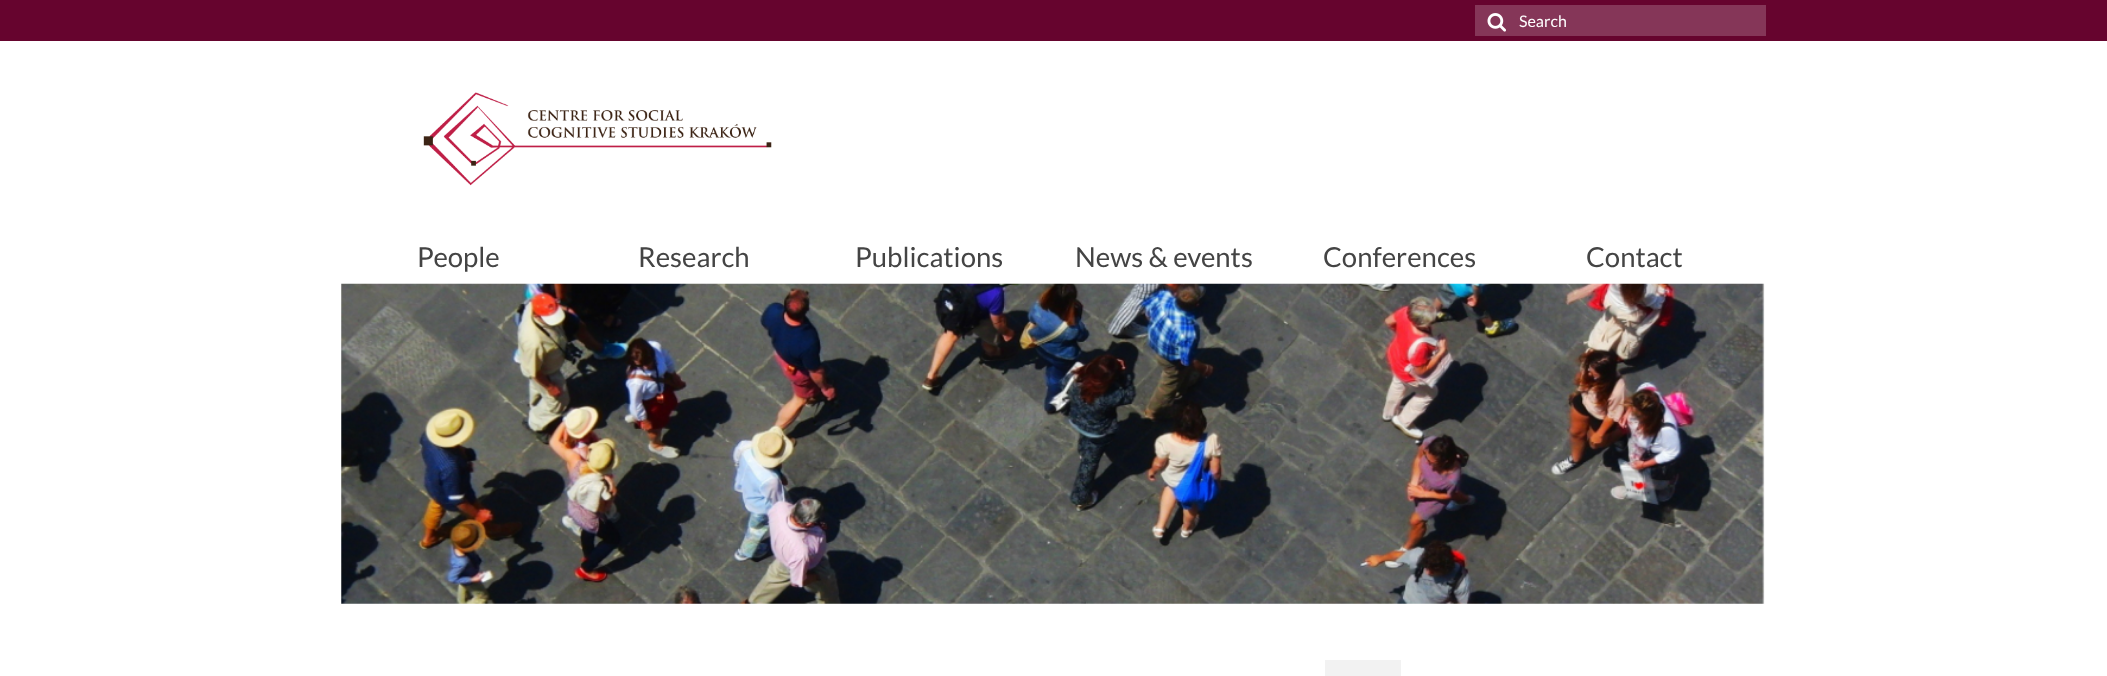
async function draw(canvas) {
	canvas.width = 2107;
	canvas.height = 676;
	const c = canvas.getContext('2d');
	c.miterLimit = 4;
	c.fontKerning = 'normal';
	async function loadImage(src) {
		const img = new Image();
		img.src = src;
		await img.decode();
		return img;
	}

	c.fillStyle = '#fff';
	c.fillRect(0, 0, 2107, 676);
	c.fillStyle = '#66042e';
	c.fillRect(0, 0, 2107, 41);
	c.fillStyle = '#853658';
	c.fillRect(1475, 5, 291, 31);
	c.drawImage(await loadImage('img1.png'), 1487, 13, 19, 19);
	c.font = '16px Lato';
	c.fillStyle = '#fff';
	c.fillText('Search', 1519, 27);
	c.drawImage(await loadImage('img2.png'), 423, 92, 349, 94);
	c.font = '27.5px Lato';
	c.fillStyle = '#444';
	for (const [text, x, y] of [
		['People', 417, 267],
		['Research', 638, 267],
		['Publications', 855, 267],
		['News & events', 1075, 267],
		['Conferences', 1323, 267],
		['Contact', 1586, 267],
	]) {
		c.fillText(text, x, y);
	}
	c.drawImage(await loadImage('img3.png'), 341, 283, 1424, 321);
	c.fillStyle = '#f2f2f2';
	c.fillRect(1325, 660, 76, 16);
}

draw(document.querySelector('canvas'));
